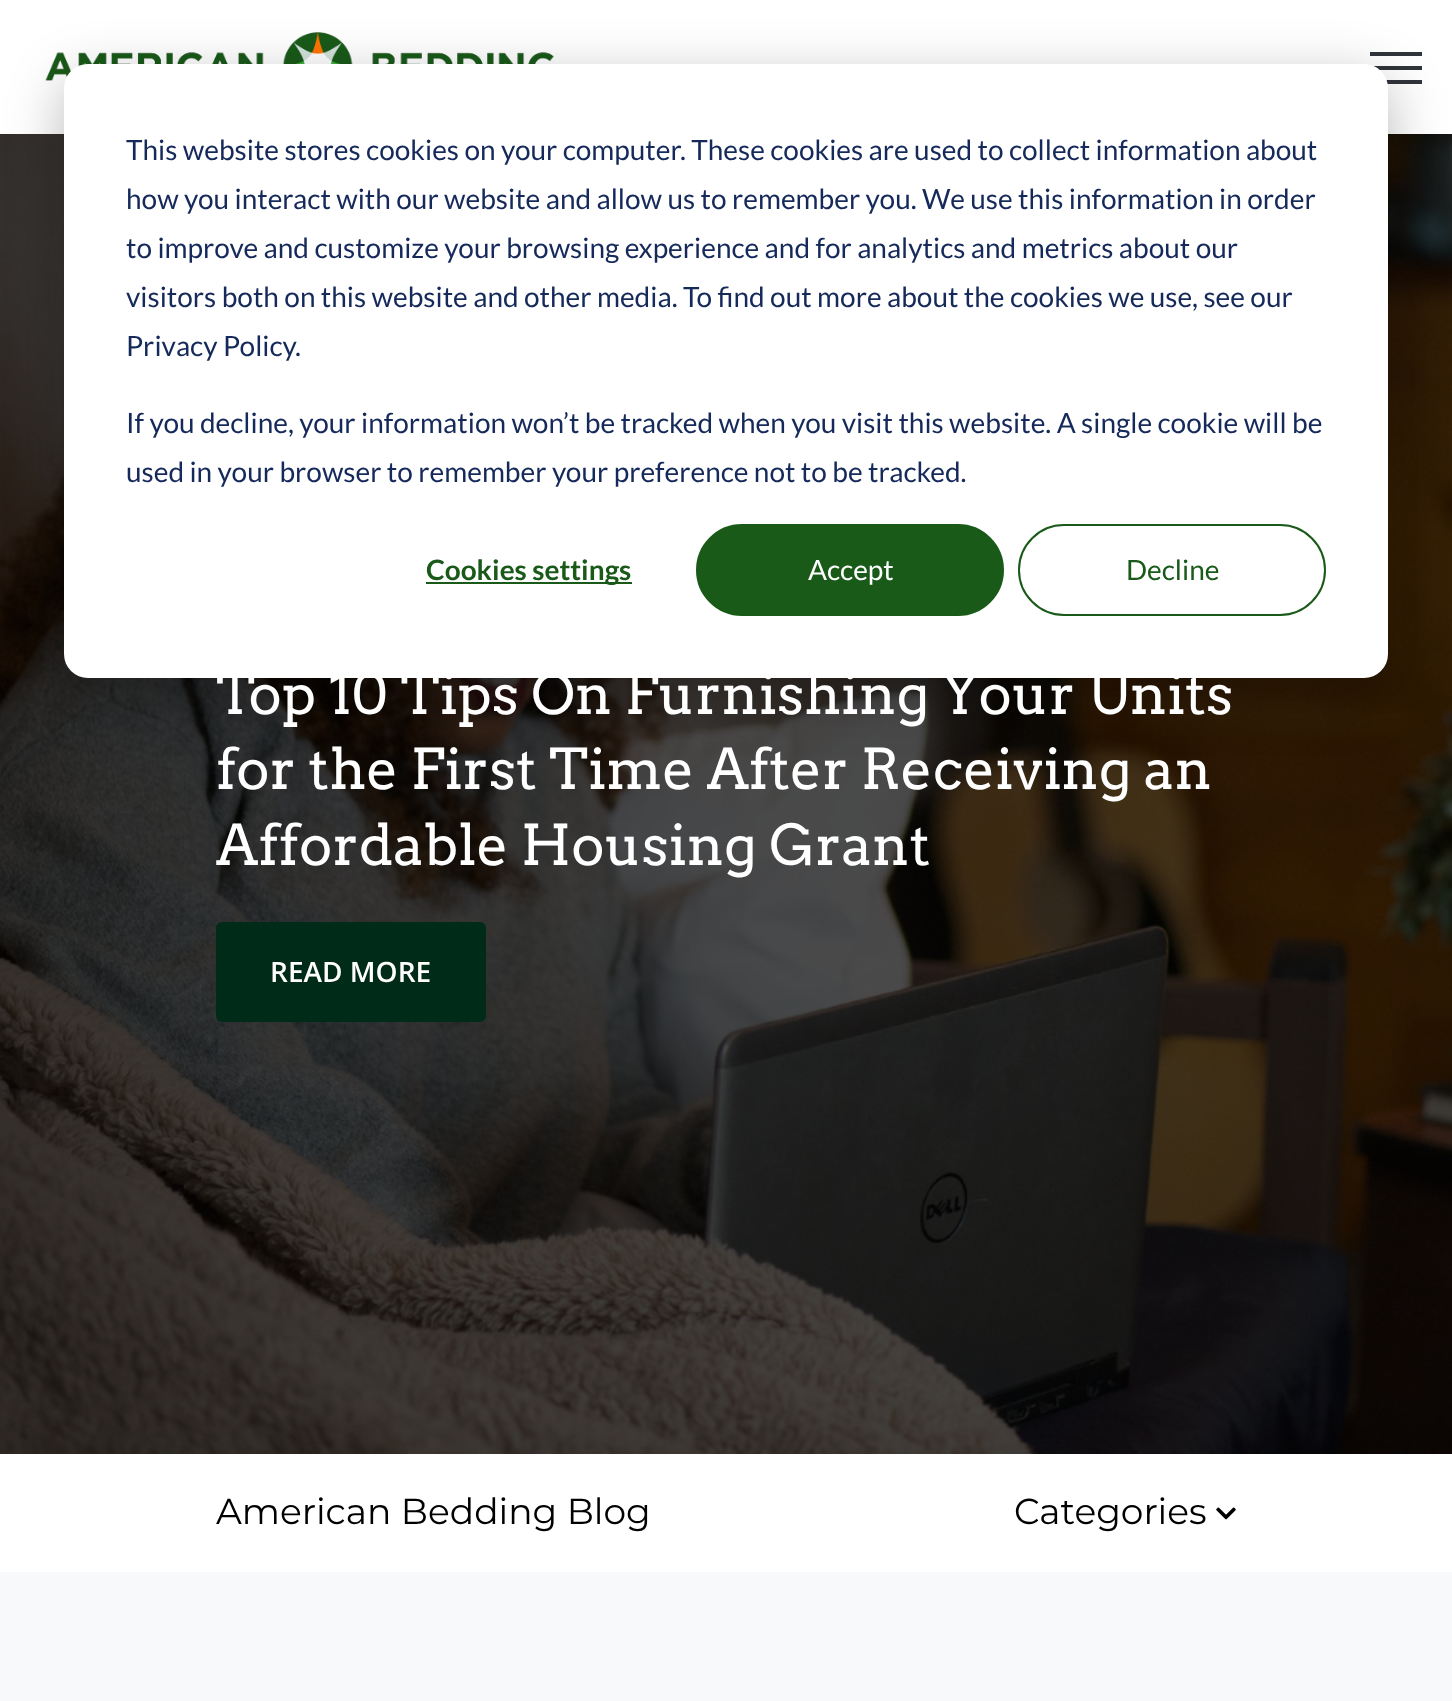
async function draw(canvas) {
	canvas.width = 1452;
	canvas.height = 1701;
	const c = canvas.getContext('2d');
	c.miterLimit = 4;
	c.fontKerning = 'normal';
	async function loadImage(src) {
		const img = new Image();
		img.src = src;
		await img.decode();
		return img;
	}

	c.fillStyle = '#fff';
	c.fillRect(0, 0, 1452, 1701);
	c.drawImage(await loadImage('img1.png'), 45, 32, 509, 49);
	for (const [x, y, w, h, color] of [
		[1370, 52, 52, 4, '#30343b'],
		[1370, 66, 52, 4, '#30343b'],
		[1386, 80, 36, 4, '#30343b'],
	]) {
		c.fillStyle = color;
		c.fillRect(x, y, w, h);
	}
	c.drawImage(await loadImage('img2.png'), 0, 134, 1452, 1320);
	c.fillStyle = '#00000047';
	c.filter = 'blur(28px)';
	c.beginPath();
	c.roundRect(64, 80, 1324, 614, 24);
	c.fill();
	c.filter = 'none';
	c.fillStyle = '#fff';
	c.beginPath();
	c.roundRect(64, 64, 1324, 614, 24);
	c.fill();
	c.font = '28px Lato';
	c.fillStyle = '#15295a';
	for (const [text, x, y] of [
		['This website stores cookies on your computer. These cookies are used to collect information about', 126, 160],
		['how you interact with our website and allow us to remember you. We use this information in order', 126, 209],
		['to improve and customize your browsing experience and for analytics and metrics about our', 126, 258],
		['visitors both on this website and other media. To find out more about the cookies we use, see our', 126, 307],
		['Privacy Policy.', 126, 356],
		['If you decline, your information won’t be tracked when you visit this website. A single cookie will be', 126, 433],
		['used in your browser to remember your preference not to be tracked.', 126, 482],
	]) {
		c.fillText(text, x, y);
	}
	c.fillStyle = '#195a19';
	c.fillRect(426, 582, 206, 2);
	c.font = 'bold 28px Lato';
	c.fillText('Cookies settings', 426, 580);
	c.beginPath();
	c.roundRect(697, 525, 306, 90, 45);
	c.fill();
	c.strokeStyle = '#195a19';
	c.lineWidth = 2;
	c.stroke();
	c.font = '28px Lato';
	c.fillStyle = '#fff';
	c.fillText('Accept', 808, 580);
	c.beginPath();
	c.roundRect(1019, 525, 306, 90, 45);
	c.stroke();
	c.fillStyle = '#195a19';
	c.fillText('Decline', 1126, 580);
	c.font = '56px Arvo';
	c.fillStyle = '#fff';
	for (const [text, x, y] of [
		['Top 10 Tips On Furnishing Your Units', 216, 714],
		['for the First Time After Receiving an', 216, 789],
		['Affordable Housing Grant', 216, 865],
	]) {
		c.fillText(text, x, y);
	}
	c.fillStyle = '#002b19';
	c.beginPath();
	c.roundRect(218, 924, 266, 96, 4);
	c.fill();
	c.strokeStyle = '#002b19';
	c.lineWidth = 4;
	c.stroke();
	c.font = '600 28px Open Sans';
	c.fillStyle = '#fff';
	c.fillText('READ MORE', 270, 982);
	c.font = '36px Montserrat';
	c.fillStyle = '#000';
	c.fillText('American Bedding Blog', 216, 1524);
	c.fillText('Categories', 1014, 1524);
	c.drawImage(await loadImage('img3.png'), 1216, 1507, 20, 13);
	c.fillStyle = '#f8f9fa';
	c.fillRect(0, 1572, 1452, 129);
}

draw(document.querySelector('canvas'));
